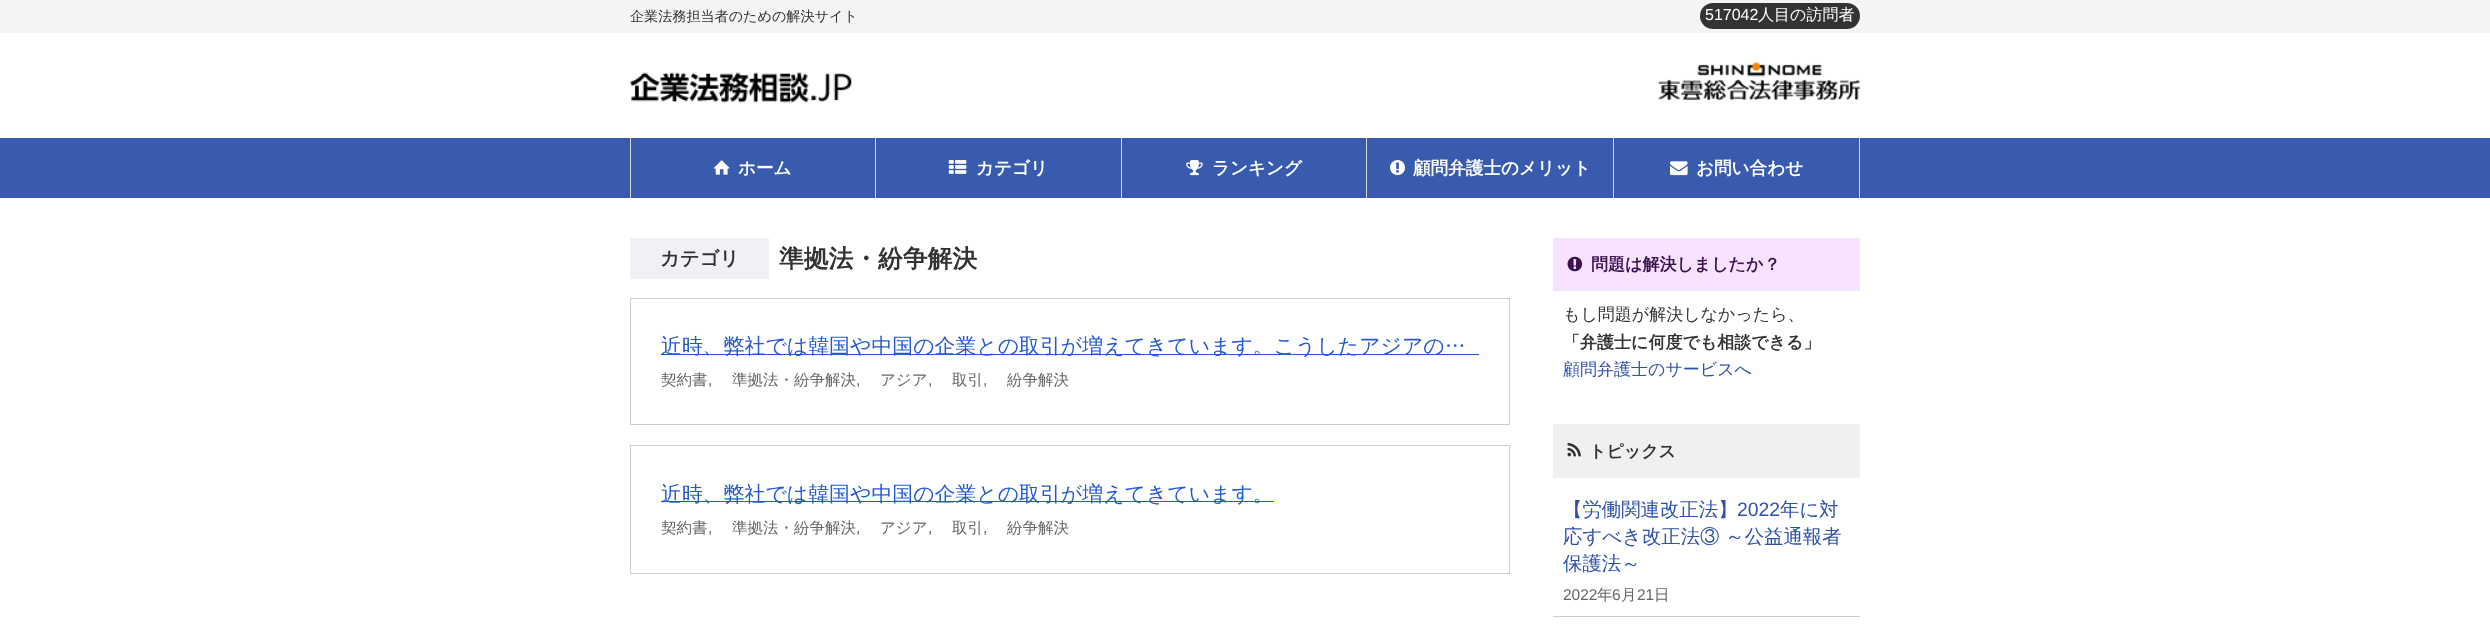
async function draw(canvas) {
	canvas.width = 2490;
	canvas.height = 637;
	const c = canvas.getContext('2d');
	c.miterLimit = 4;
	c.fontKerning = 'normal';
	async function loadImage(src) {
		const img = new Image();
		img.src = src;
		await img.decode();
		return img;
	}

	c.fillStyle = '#fff';
	c.fillRect(0, 0, 2490, 637);
	c.fillStyle = '#f4f4f4';
	c.fillRect(0, 0, 2490, 33);
	c.font = '500 14.1px WenQuanYi Zen Hei';
	c.fillStyle = '#333';
	c.fillText('企業法務担当者のための解決サイト', 630, 21);
	c.beginPath();
	c.roundRect(1700, 3, 160, 26, 13);
	c.fill();
	c.font = '16px Liberation Sans';
	c.fillStyle = '#fff';
	c.fillText('517042', 1705, 20);
	c.font = '500 16px WenQuanYi Zen Hei';
	c.fillText('人目の訪問者', 1758, 20);
	c.drawImage(await loadImage('img1.png'), 630, 72, 222, 31);
	c.drawImage(await loadImage('img2.png'), 1658, 62, 202, 38);
	for (const [x, y, w, h, color] of [
		[0, 138, 2490, 60, '#385bad'],
		[875, 138, 1, 60, '#d3d3d3'],
		[630, 138, 1, 60, '#d3d3d3'],
	]) {
		c.fillStyle = color;
		c.fillRect(x, y, w, h);
	}
	c.drawImage(await loadImage('img3.png'), 713, 160, 17, 15);
	c.font = 'bold 17.6px WenQuanYi Zen Hei';
	c.fillStyle = '#fff';
	c.fillText('ホーム', 738, 174);
	c.fillStyle = '#d3d3d3';
	c.fillRect(1121, 138, 1, 60);
	c.drawImage(await loadImage('img4.png'), 948, 160, 19, 14);
	c.fillStyle = '#fff';
	c.fillText('カテゴリ', 976, 174);
	c.fillStyle = '#d3d3d3';
	c.fillRect(1366, 138, 1, 60);
	c.drawImage(await loadImage('img5.png'), 1186, 160, 17, 16);
	c.fillStyle = '#fff';
	c.fillText('ランキング', 1212, 174);
	c.fillStyle = '#d3d3d3';
	c.fillRect(1613, 138, 1, 60);
	c.drawImage(await loadImage('img6.png'), 1390, 160, 16, 16);
	c.fillStyle = '#fff';
	c.fillText('顧問弁護士のメリット', 1413, 174);
	c.fillStyle = '#d3d3d3';
	c.fillRect(1859, 138, 1, 60);
	c.drawImage(await loadImage('img7.png'), 1670, 161, 18, 15);
	c.fillStyle = '#fff';
	c.fillText('お問い合わせ', 1696, 174);
	c.fillStyle = '#f0f1f5';
	c.fillRect(630, 238, 139, 41);
	c.font = 'bold 19.4px WenQuanYi Zen Hei';
	c.fillStyle = '#333';
	c.fillText('カテゴリ', 660, 265);
	c.font = 'bold 24.75px WenQuanYi Zen Hei';
	c.fillText('準拠法・紛争解決', 779, 267);
	c.strokeStyle = '#ccc';
	c.strokeRect(630.5, 298.5, 879, 126);
	c.fillStyle = '#2459d3';
	c.fillRect(661, 354, 818, 1);
	c.font = '500 20.9px WenQuanYi Zen Hei';
	c.fillText('近時、弊社では韓国や中国の企業との取引が増えてきています。こうしたアジアの…', 661, 353);
	c.font = '500 15.5px WenQuanYi Zen Hei';
	c.fillStyle = '#666';
	c.fillText('契約書', 661, 385);
	c.font = '15.5px Liberation Sans';
	c.fillText(',', 708, 385);
	c.font = '500 15.5px WenQuanYi Zen Hei';
	c.fillText('準拠法・紛争解決', 732, 385);
	c.font = '15.5px Liberation Sans';
	c.fillText(',', 856, 385);
	c.font = '500 15.5px WenQuanYi Zen Hei';
	c.fillText('アジア', 880, 385);
	c.font = '15.5px Liberation Sans';
	c.fillText(',', 928, 385);
	c.font = '500 15.5px WenQuanYi Zen Hei';
	c.fillText('取引', 952, 385);
	c.font = '15.5px Liberation Sans';
	c.fillText(',', 983, 385);
	c.font = '500 15.5px WenQuanYi Zen Hei';
	c.fillText('紛争解決', 1007, 385);
	c.strokeRect(630.5, 445.5, 879, 128);
	c.fillStyle = '#2459d3';
	c.fillRect(661, 501, 613, 1);
	c.font = '500 20.9px WenQuanYi Zen Hei';
	c.fillText('近時、弊社では韓国や中国の企業との取引が増えてきています。', 661, 501);
	c.font = '500 15.5px WenQuanYi Zen Hei';
	c.fillStyle = '#666';
	c.fillText('契約書', 661, 533);
	c.font = '15.5px Liberation Sans';
	c.fillText(',', 708, 533);
	c.font = '500 15.5px WenQuanYi Zen Hei';
	c.fillText('準拠法・紛争解決', 732, 533);
	c.font = '15.5px Liberation Sans';
	c.fillText(',', 856, 533);
	c.font = '500 15.5px WenQuanYi Zen Hei';
	c.fillText('アジア', 880, 533);
	c.font = '15.5px Liberation Sans';
	c.fillText(',', 928, 533);
	c.font = '500 15.5px WenQuanYi Zen Hei';
	c.fillText('取引', 952, 533);
	c.font = '15.5px Liberation Sans';
	c.fillText(',', 983, 533);
	c.font = '500 15.5px WenQuanYi Zen Hei';
	c.fillText('紛争解決', 1007, 533);
	c.fillStyle = '#f7e3ff';
	c.fillRect(1553, 238, 307, 53);
	c.drawImage(await loadImage('img8.png'), 1567, 256, 16, 16);
	c.font = 'bold 17px WenQuanYi Zen Hei';
	c.fillStyle = '#3d114f';
	c.fillText('問題は解決しましたか？', 1591, 270);
	c.font = '500 17px WenQuanYi Zen Hei';
	c.fillStyle = '#333';
	c.fillText('もし問題が解決しなかったら、', 1563, 320);
	c.font = 'bold 17px WenQuanYi Zen Hei';
	c.fillText('「弁護士に何度でも相談できる」', 1563, 348);
	c.font = '500 17px WenQuanYi Zen Hei';
	c.fillStyle = '#2e51a9';
	c.fillText('顧問弁護士のサービスへ', 1563, 375);
	c.fillStyle = '#eff0f2';
	c.fillRect(1553, 424, 307, 54);
	c.drawImage(await loadImage('img9.png'), 1567, 443, 14, 14);
	c.font = 'bold 17px WenQuanYi Zen Hei';
	c.fillStyle = '#333';
	c.fillText('トピックス', 1589, 457);
	c.fillStyle = '#ccc';
	c.fillRect(1553, 616, 307, 1);
	c.font = '500 19.4px WenQuanYi Zen Hei';
	c.fillStyle = '#2e51a9';
	c.fillText('【労働関連改正法】', 1563, 516);
	c.font = '19.4px Liberation Sans';
	c.fillText('2022', 1737, 516);
	c.font = '500 19.4px WenQuanYi Zen Hei';
	for (const [text, x, y] of [
		['年に対', 1780, 516],
		['応すべき改正法③ ～公益通報者', 1563, 543],
		['保護法～', 1563, 570],
	]) {
		c.fillText(text, x, y);
	}
	c.font = '15.5px Liberation Sans';
	c.fillStyle = '#666';
	c.fillText('2022', 1563, 600);
	c.font = '500 15.5px WenQuanYi Zen Hei';
	c.fillText('年', 1597, 600);
	c.font = '15.5px Liberation Sans';
	c.fillText('6', 1612, 600);
	c.font = '500 15.5px WenQuanYi Zen Hei';
	c.fillText('月', 1621, 600);
	c.font = '15.5px Liberation Sans';
	c.fillText('21', 1637, 600);
	c.font = '500 15.5px WenQuanYi Zen Hei';
	c.fillText('日', 1654, 600);
}

draw(document.querySelector('canvas'));
